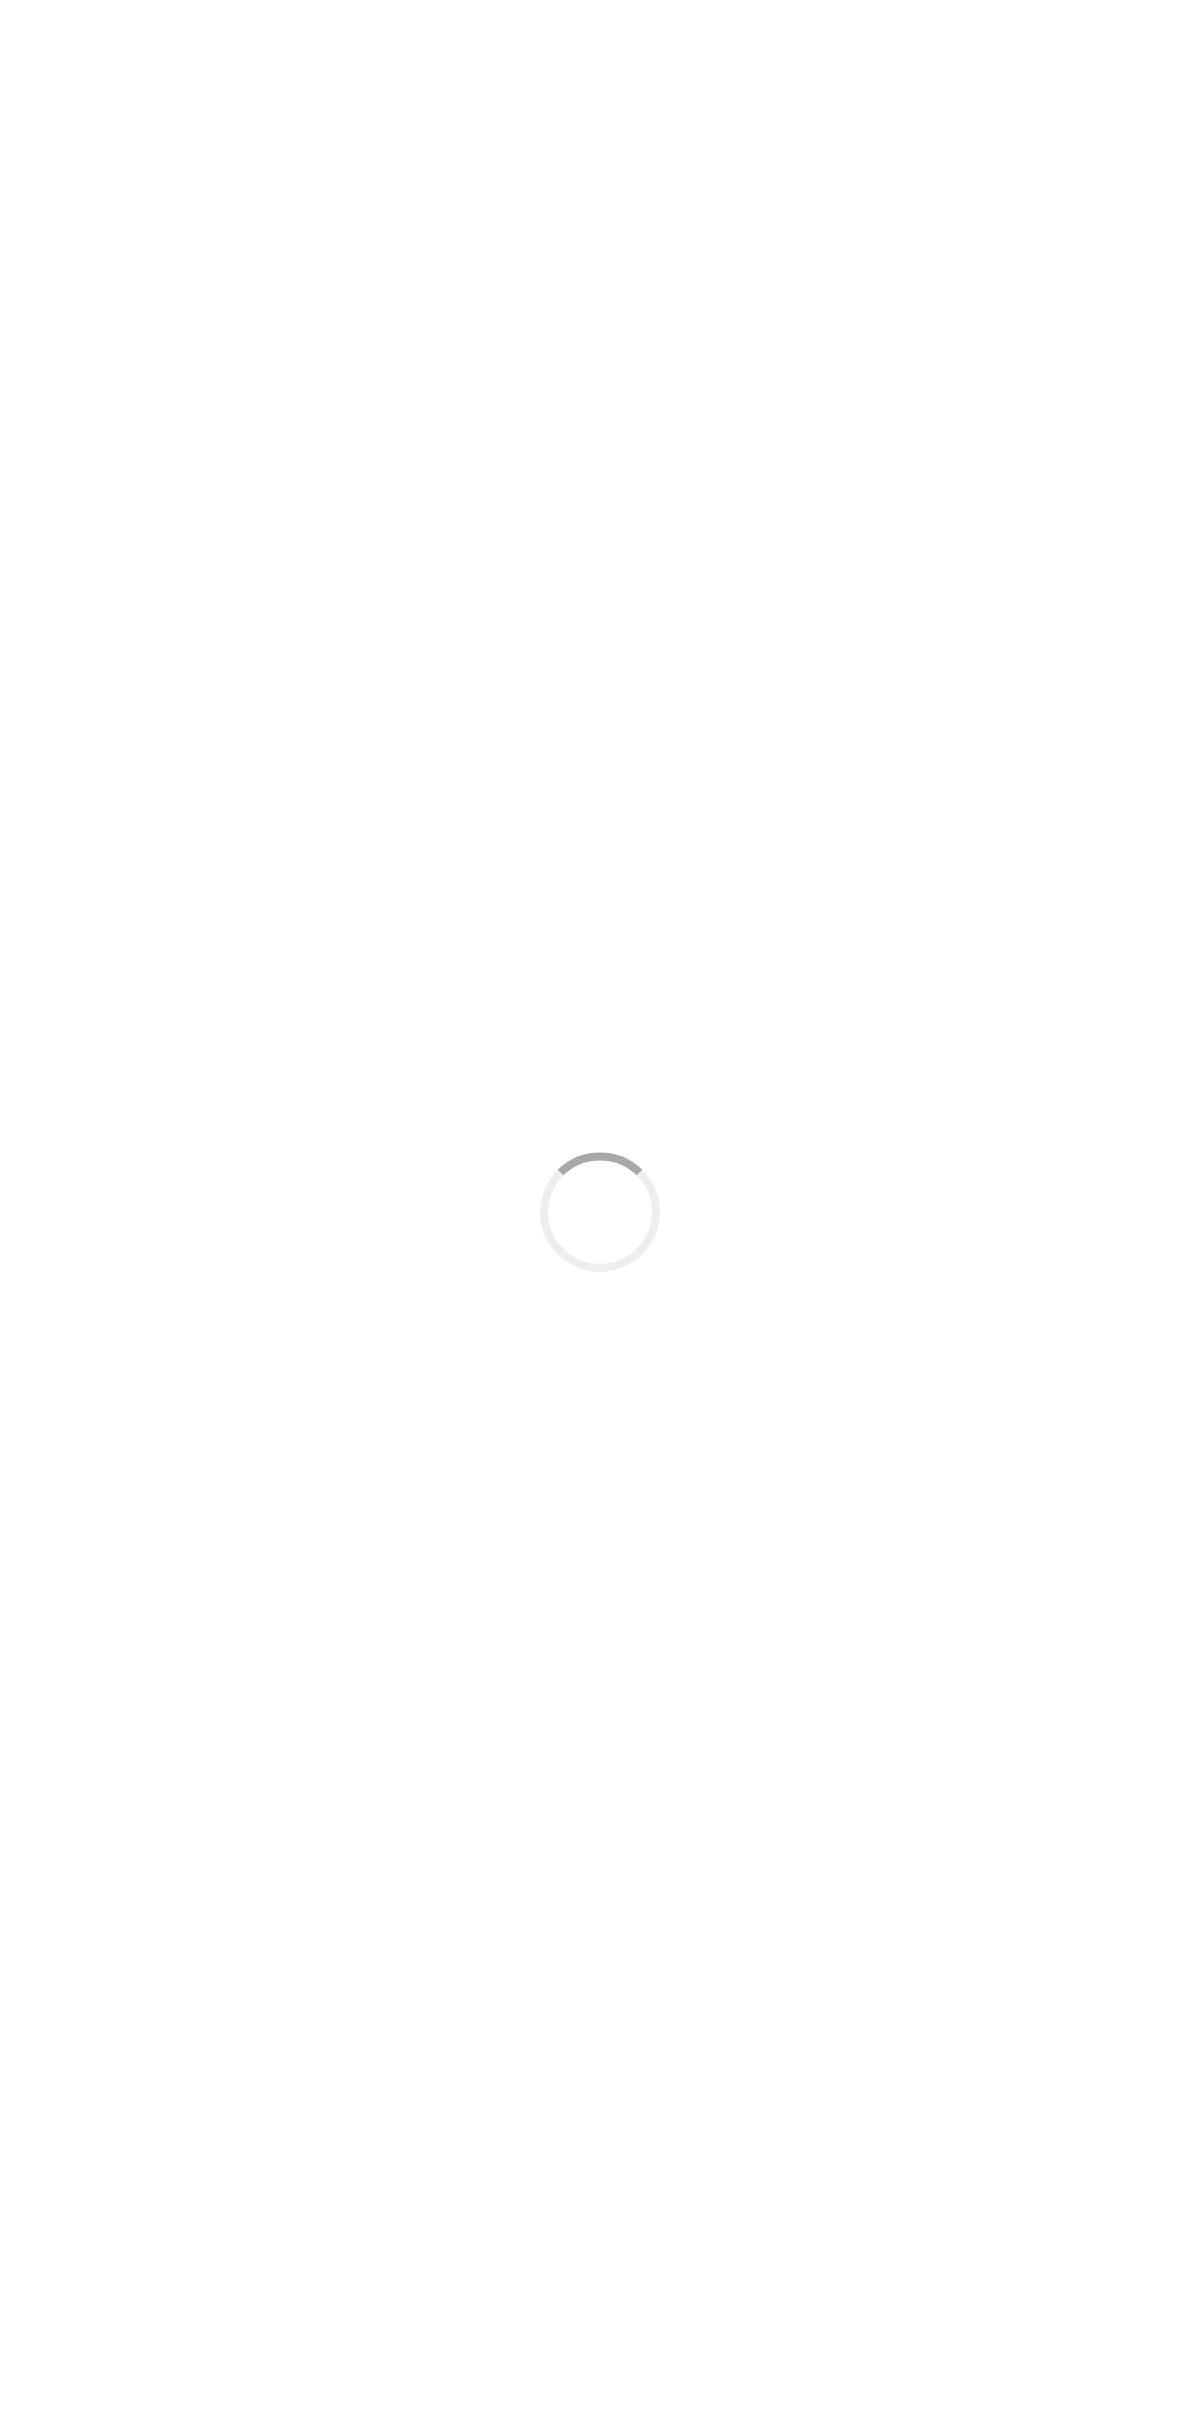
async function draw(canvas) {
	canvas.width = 1200;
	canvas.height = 2421;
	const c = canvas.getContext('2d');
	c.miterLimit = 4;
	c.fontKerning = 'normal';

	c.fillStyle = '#fff';
	c.fillRect(0, 0, 1200, 2421);
	c.beginPath();
	c.moveTo(560.5, 1172.5);
	c.bezierCurveTo(582, 1151, 618, 1151, 639.5, 1172.5);
	c.strokeStyle = '#a8a8a8';
	c.lineWidth = 8;
	c.stroke();
	c.beginPath();
	c.moveTo(639.5, 1172.5);
	c.bezierCurveTo(650, 1183, 656, 1197.5, 656, 1212);
	c.bezierCurveTo(656, 1261.5, 595.5, 1286.5, 560.5, 1251.5);
	c.bezierCurveTo(552.5, 1244, 547, 1234, 545, 1223);
	c.bezierCurveTo(541.5, 1205, 547.5, 1185.5, 560.5, 1172.5);
	c.strokeStyle = '#a8a8a833';
	c.stroke();
}

draw(document.querySelector('canvas'));
